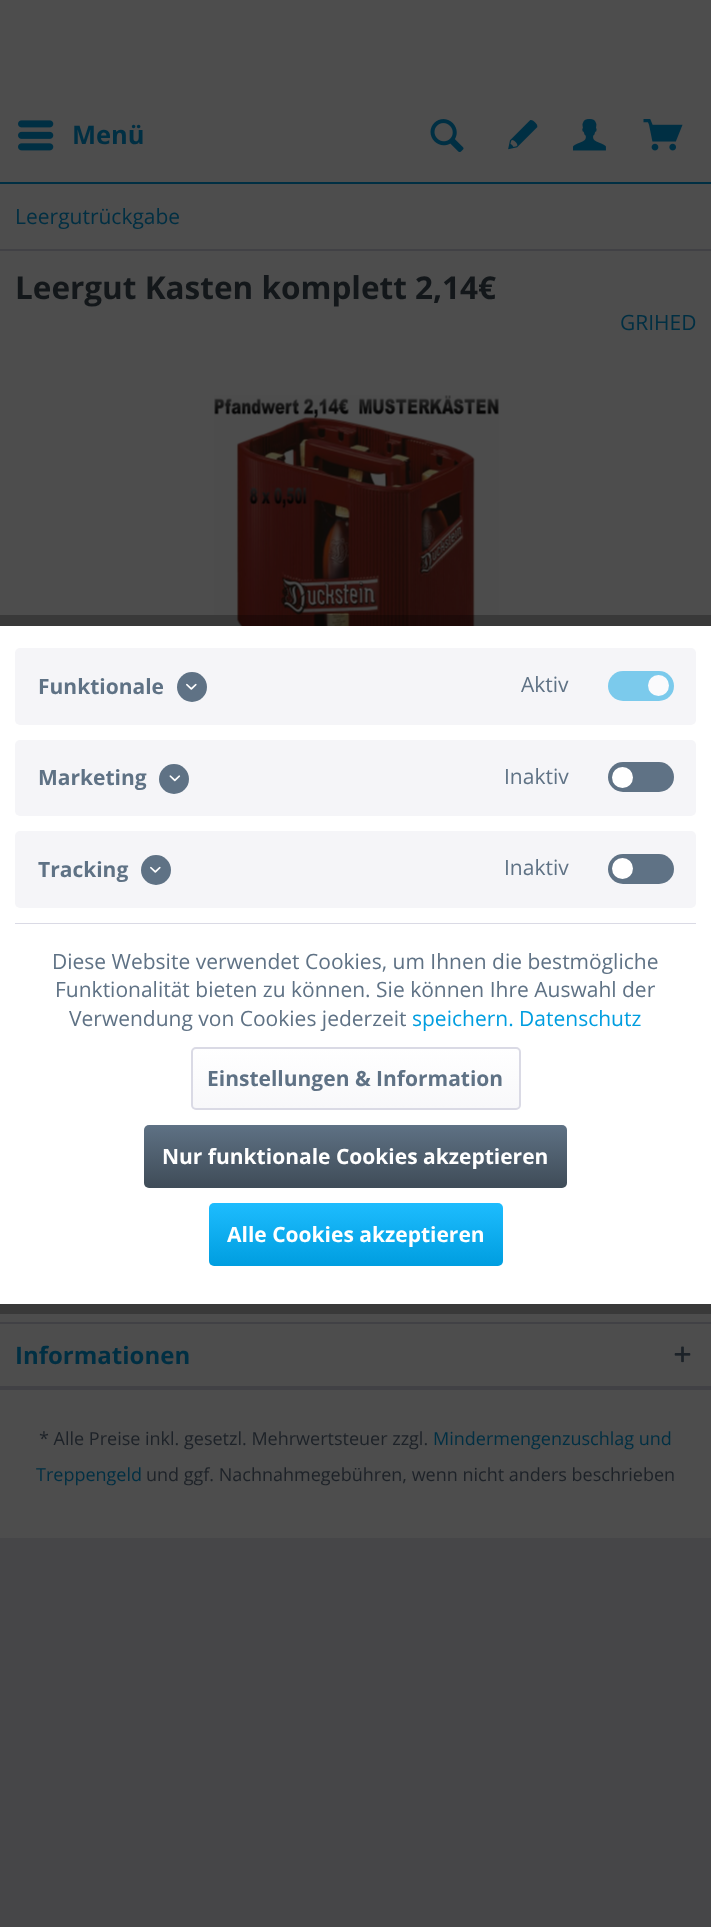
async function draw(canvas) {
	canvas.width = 711;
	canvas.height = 1927;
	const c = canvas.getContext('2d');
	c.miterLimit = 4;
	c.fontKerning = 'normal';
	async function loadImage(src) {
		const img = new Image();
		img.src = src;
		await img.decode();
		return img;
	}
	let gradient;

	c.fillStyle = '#464648';
	c.fillRect(0, 0, 711, 1927);
	c.fillStyle = '#4d4d4d';
	c.fillRect(0, 0, 711, 626);
	c.fillStyle = '#002f43';
	c.fillRect(0, 182, 711, 2);
	c.drawImage(await loadImage('img1.png'), 18, 120, 36, 31);
	c.font = 'bold 25.5px Open Sans';
	c.fillText('Menü', 72, 144);
	c.drawImage(await loadImage('img2.png'), 430, 119, 34, 33);
	c.drawImage(await loadImage('img3.png'), 508, 120, 30, 30);
	c.drawImage(await loadImage('img4.png'), 573, 119, 33, 32);
	c.drawImage(await loadImage('img5.png'), 643, 119, 40, 32);
	c.fillStyle = '#414145';
	c.fillRect(0, 249, 711, 2);
	c.font = '21px Open Sans';
	c.fillStyle = '#002f43';
	c.fillText('Leergutrückgabe', 15, 224);
	c.font = 'bold 31.5px Open Sans';
	c.fillStyle = '#13171a';
	c.fillText('Leergut Kasten komplett 2,14€', 15, 299);
	c.font = '21px Open Sans';
	c.fillStyle = '#002f43';
	c.fillText('GRIHED', 620, 330);
	c.drawImage(await loadImage('img6.png'), 214, 395, 285, 231);
	c.fillStyle = '#4d4d4d';
	c.fillRect(0, 1304, 711, 234);
	c.fillStyle = '#414145';
	c.fillRect(0, 1322, 711, 2);
	c.font = 'bold 24px Open Sans';
	c.fillStyle = '#002f43';
	c.fillText('Informationen', 15, 1364);
	c.drawImage(await loadImage('img7.png'), 674, 1346, 17, 17);
	c.fillStyle = '#414145';
	c.fillRect(0, 1386, 711, 4);
	c.font = '18px Open Sans';
	c.fillStyle = '#1d2228';
	c.fillText('* Alle Preise inkl. gesetzl. Mehrwertsteuer zzgl.', 39, 1445);
	c.fillStyle = '#002f43';
	c.fillText('Mindermengenzuschlag und', 433, 1445);
	c.fillText('Treppengeld', 36, 1481);
	c.fillStyle = '#1d2228';
	c.fillText('und ggf. Nachnahmegebühren, wenn nicht anders beschrieben', 146, 1481);
	c.strokeStyle = '#00000040';
	c.lineWidth = 11;
	c.strokeRect(-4.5, 620.5, 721, 688);
	c.fillStyle = '#fff';
	c.fillRect(0, 626, 711, 678);
	c.fillStyle = '#dadae5';
	c.fillRect(15, 923, 681, 1);
	c.fillStyle = '#f5f5f8';
	c.beginPath();
	c.roundRect(15, 648, 681, 77, 5);
	c.fill();
	c.font = 'bold 21px Open Sans';
	c.fillStyle = '#5f7285';
	c.fillText('Funktionale', 38, 694);
	c.beginPath();
	c.arc(192, 687, 15, 0, 2 * Math.PI);
	c.fill();
	c.drawImage(await loadImage('img8.png'), 186, 683, 11, 7);
	c.font = '21px Open Sans';
	c.fillText('Aktiv', 521, 692);
	c.fillStyle = '#7bcaec';
	c.beginPath();
	c.roundRect(608, 671, 66, 30, 15);
	c.fill();
	c.fillStyle = '#fafafc';
	c.beginPath();
	c.arc(658.5, 685.5, 10.5, 0, 2 * Math.PI);
	c.fill();
	c.fillStyle = '#f5f5f8';
	c.beginPath();
	c.roundRect(15, 740, 681, 76, 5);
	c.fill();
	c.font = 'bold 21px Open Sans';
	c.fillStyle = '#5f7285';
	c.fillText('Marketing', 38, 785);
	c.beginPath();
	c.arc(174, 779, 15, 0, 2 * Math.PI);
	c.fill();
	c.drawImage(await loadImage('img9.png'), 169, 775, 12, 7);
	c.font = '21px Open Sans';
	c.fillText('Inaktiv', 504, 784);
	c.beginPath();
	c.roundRect(608, 762, 66, 30, 15);
	c.fill();
	c.fillStyle = '#fff';
	c.beginPath();
	c.arc(622.5, 777.5, 10.5, 0, 2 * Math.PI);
	c.fill();
	c.fillStyle = '#f5f5f8';
	c.beginPath();
	c.roundRect(15, 831, 681, 77, 5);
	c.fill();
	c.font = 'bold 21px Open Sans';
	c.fillStyle = '#5f7285';
	c.fillText('Tracking', 38, 877);
	c.beginPath();
	c.arc(156, 870, 15, 0, 2 * Math.PI);
	c.fill();
	c.drawImage(await loadImage('img8.png'), 150, 866, 11, 7);
	c.font = '21px Open Sans';
	c.fillText('Inaktiv', 504, 875);
	c.beginPath();
	c.roundRect(608, 854, 66, 30, 15);
	c.fill();
	c.fillStyle = '#fff';
	c.beginPath();
	c.arc(622.5, 868.5, 10.5, 0, 2 * Math.PI);
	c.fill();
	c.fillStyle = '#5f7285';
	for (const [text, x, y] of [
		['Diese Website verwendet Cookies, um Ihnen die bestmögliche', 52, 969],
		['Funktionalität bieten zu können. Sie können Ihre Auswahl der', 55, 997],
		['Verwendung von Cookies jederzeit', 69, 1026],
	]) {
		c.fillText(text, x, y);
	}
	c.fillStyle = '#009ee0';
	c.fillText('speichern. Datenschutz', 412, 1026);
	gradient = c.createLinearGradient(356, 1048, 356, 1108);
	gradient.addColorStop(0, '#fff');
	gradient.addColorStop(1, '#f8f8fa');
	c.fillStyle = gradient;
	c.beginPath();
	c.roundRect(192, 1049, 327, 60, 3);
	c.fill();
	c.beginPath();
	c.roundRect(192, 1048, 328, 61, 4);
	c.strokeStyle = '#dadae5';
	c.lineWidth = 2;
	c.stroke();
	c.font = 'bold 21px Open Sans';
	c.fillStyle = '#5f7285';
	c.fillText('Einstellungen & Information', 207, 1086);
	gradient = c.createLinearGradient(356, 1124, 356, 1187);
	gradient.addColorStop(0, '#5f7285');
	gradient.addColorStop(1, '#3f4c58');
	c.fillStyle = gradient;
	c.beginPath();
	c.roundRect(144, 1125, 423, 63, 5);
	c.fill();
	c.fillStyle = '#fff';
	c.fillText('Nur funktionale Cookies akzeptieren', 162, 1164);
	gradient = c.createLinearGradient(356, 1202, 356, 1265);
	gradient.addColorStop(0, '#1ebdff');
	gradient.addColorStop(1, '#009ee0');
	c.fillStyle = gradient;
	c.beginPath();
	c.roundRect(209, 1203, 294, 63, 5);
	c.fill();
	c.fillStyle = '#fff';
	c.fillText('Alle Cookies akzeptieren', 227, 1242);
}

draw(document.querySelector('canvas'));
